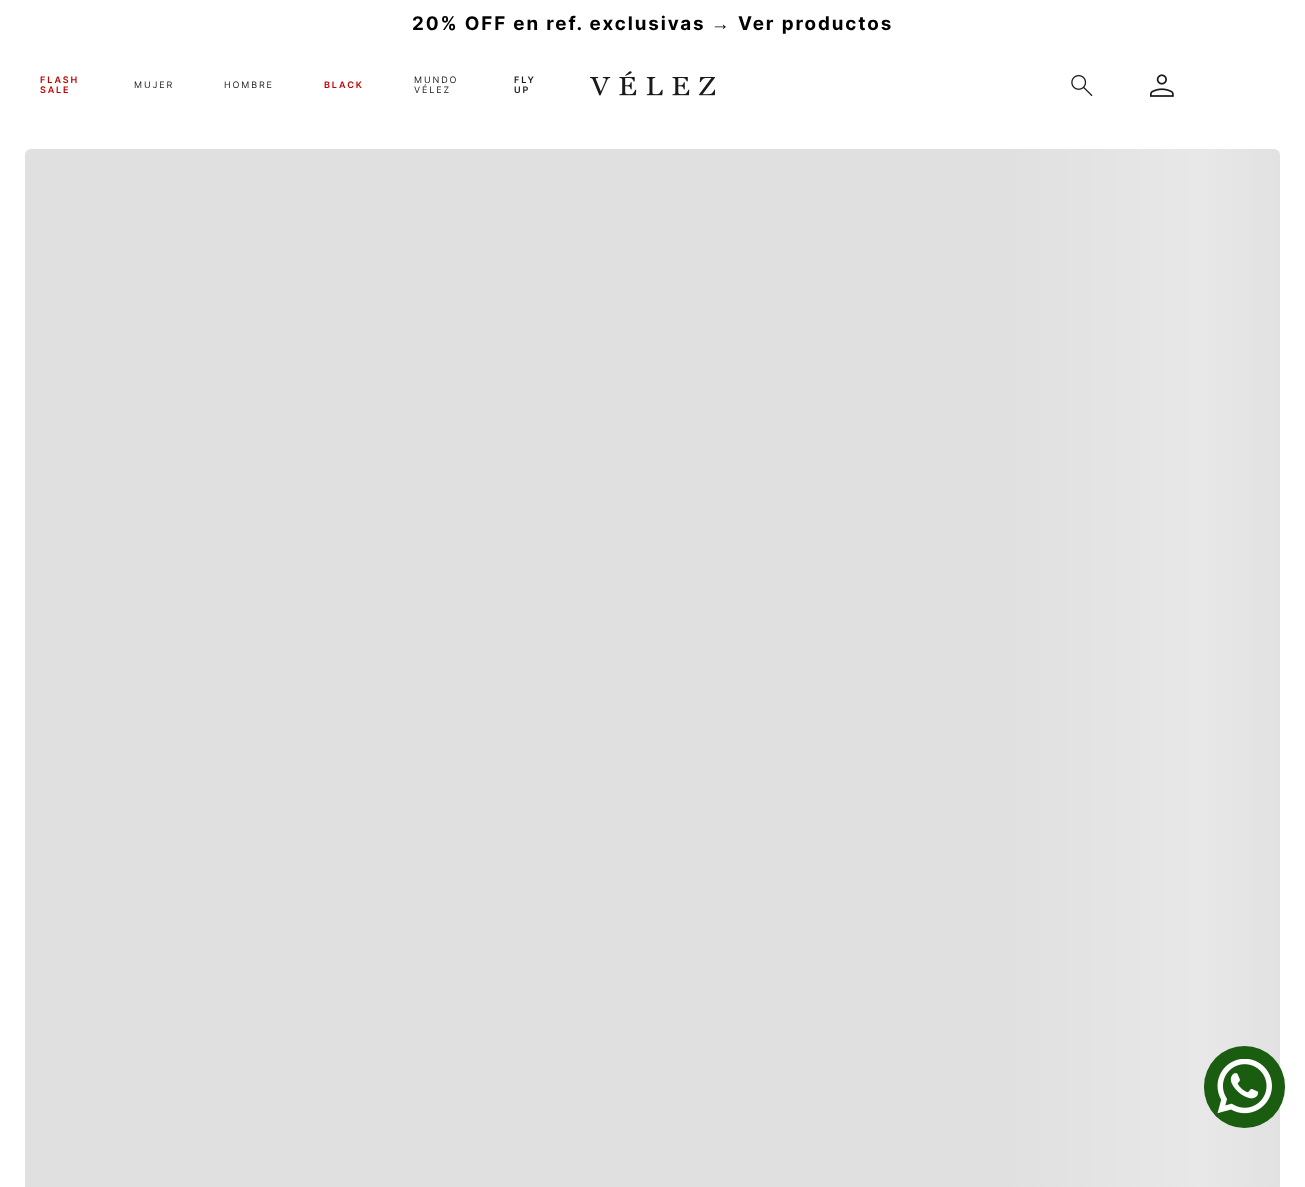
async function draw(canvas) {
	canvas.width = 1305;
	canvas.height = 1187;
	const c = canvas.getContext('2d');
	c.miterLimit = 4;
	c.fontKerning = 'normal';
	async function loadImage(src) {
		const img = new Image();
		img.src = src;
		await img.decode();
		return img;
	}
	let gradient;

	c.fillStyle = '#fff';
	c.fillRect(0, 0, 1305, 1187);
	c.letterSpacing = '1.9px';
	c.font = 'bold 18.75px Inter';
	c.fillStyle = '#000';
	c.fillText('20% OFF en ref. exclusivas', 412, 30);
	c.font = 'bold 18.75px Liberation Sans';
	c.fillText('→', 711, 30);
	c.font = 'bold 18.75px Inter';
	c.fillText('Ver productos', 738, 30);
	c.font = '600 9px Inter';
	c.fillStyle = '#c30303';
	c.fillText('FLASH', 40, 83);
	c.fillText('SALE', 40, 93);
	c.font = '9px Inter';
	c.fillStyle = '#1a1a1a';
	c.fillText('MUJER', 134, 88);
	c.fillText('HOMBRE', 224, 88);
	c.font = '600 9px Inter';
	c.fillStyle = '#c30303';
	c.fillText('BLACK', 324, 88);
	c.font = '9px Inter';
	c.fillStyle = '#1a1a1a';
	c.fillText('MUNDO', 414, 83);
	c.fillText('VÉLEZ', 414, 93);
	c.font = '600 9px Inter';
	c.fillText('FLY', 514, 83);
	c.fillText('UP', 514, 93);
	c.drawImage(await loadImage('img1.png'), 590, 71, 125, 25);
	c.drawImage(await loadImage('img2.png'), 1071, 75, 22, 21);
	c.drawImage(await loadImage('img3.png'), 1150, 74, 24, 23);
	gradient = c.createLinearGradient(25, 743, 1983, 743);
	gradient.addColorStop(0, '#e0e0e0');
	gradient.addColorStop(0.5, '#e0e0e0');
	gradient.addColorStop(0.6, '#e8e8e8');
	gradient.addColorStop(0.65, '#e0e0e0');
	gradient.addColorStop(1, '#e0e0e0');
	c.fillStyle = gradient;
	c.beginPath();
	c.roundRect(25, 149, 1255, 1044, 6);
	c.fill();
	c.fillStyle = '#1a5c10';
	c.beginPath();
	c.roundRect(1204, 1046, 81, 82, 40.5);
	c.fill();
	c.drawImage(await loadImage('img4.png'), 1217, 1059, 55, 55);
}

draw(document.querySelector('canvas'));
